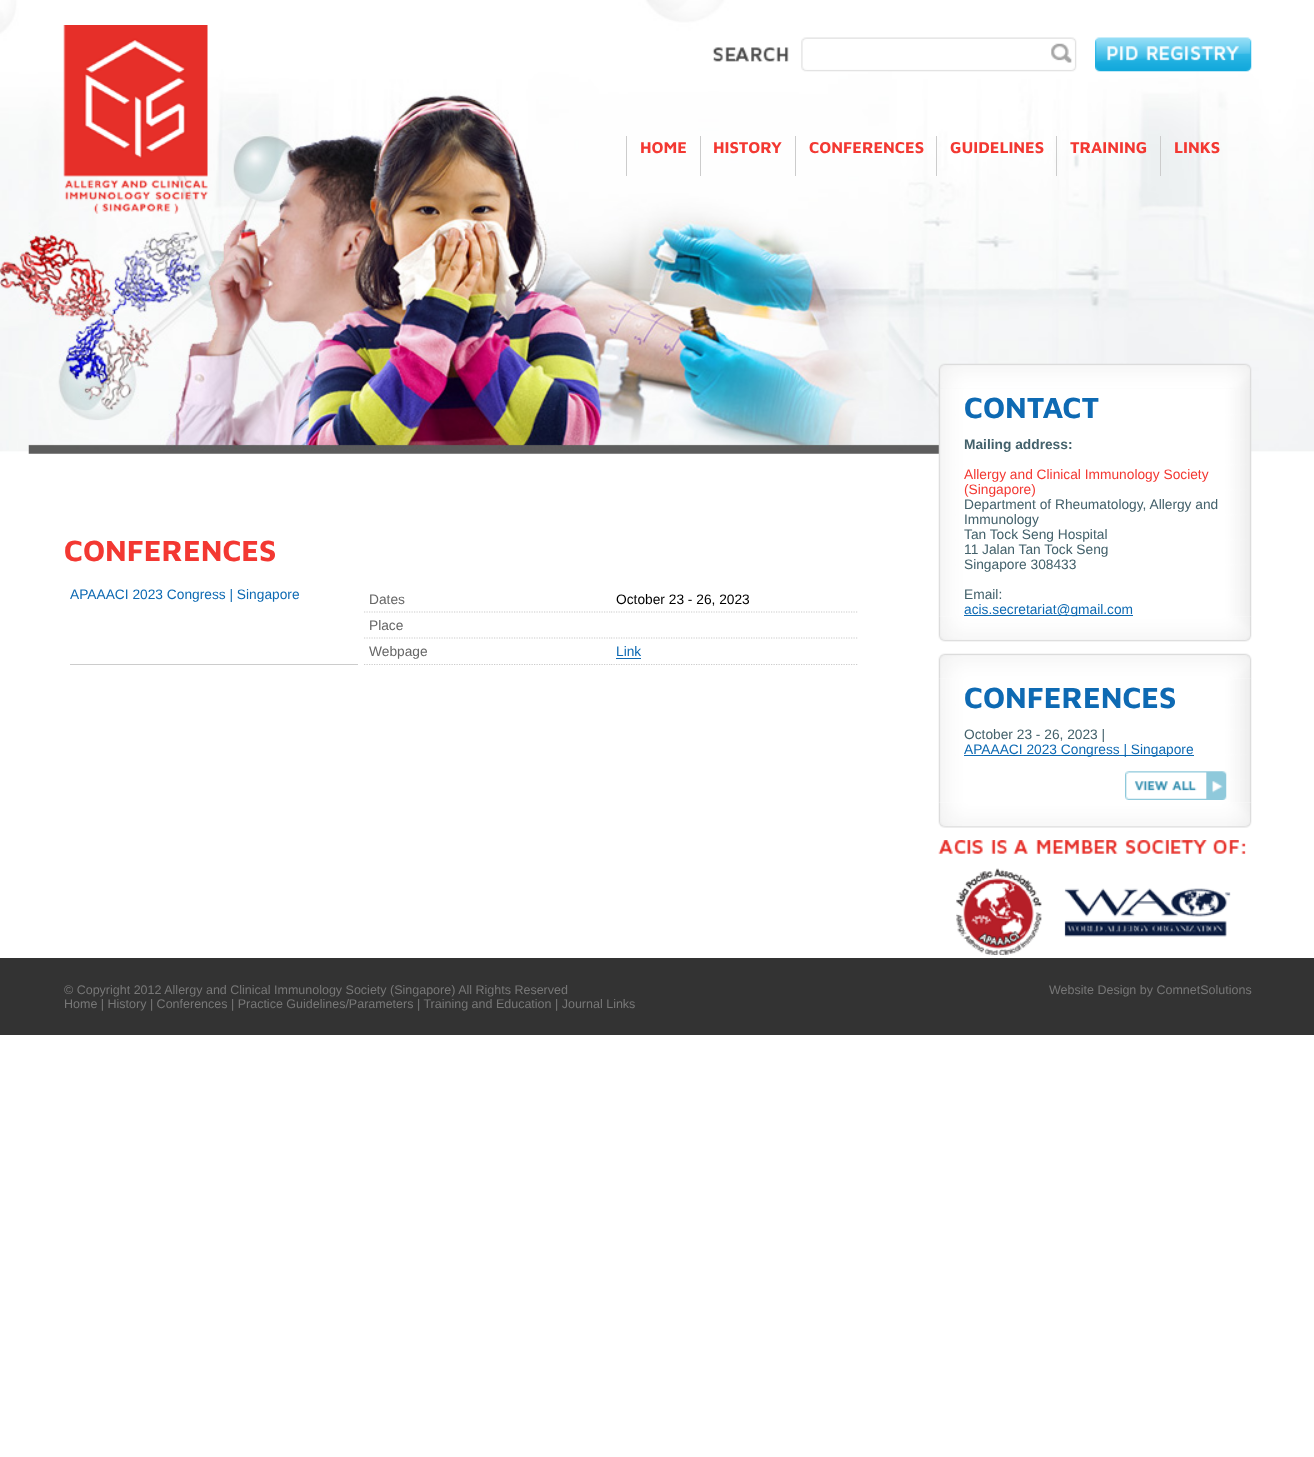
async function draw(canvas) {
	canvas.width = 1314;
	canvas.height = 1457;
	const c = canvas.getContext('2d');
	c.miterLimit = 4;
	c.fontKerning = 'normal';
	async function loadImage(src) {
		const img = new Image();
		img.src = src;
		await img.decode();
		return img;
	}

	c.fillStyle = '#fff';
	c.fillRect(0, 0, 1314, 1457);
	c.drawImage(await loadImage('img1.png'), 0, 0, 1314, 454);
	c.drawImage(await loadImage('img2.png'), 63, 25, 145, 189);
	c.drawImage(await loadImage('img3.png'), 712, 37, 365, 35);
	c.drawImage(await loadImage('img4.png'), 1051, 43, 21, 20);
	c.drawImage(await loadImage('img5.png'), 1095, 37, 157, 35);
	c.fillStyle = '#ccc';
	c.fillRect(626, 136, 1, 40);
	c.font = 'bold 16.25px Maven Pro';
	c.fillStyle = '#f33832';
	c.fillText('HOME', 640, 153);
	c.fillStyle = '#ccc';
	c.fillRect(700, 136, 1, 40);
	c.fillStyle = '#f33832';
	c.fillText('HISTORY', 713, 153);
	c.fillStyle = '#ccc';
	c.fillRect(795, 136, 1, 40);
	c.fillStyle = '#f33832';
	c.fillText('CONFERENCES', 809, 153);
	c.fillStyle = '#ccc';
	c.fillRect(936, 136, 1, 40);
	c.fillStyle = '#f33832';
	c.fillText('GUIDELINES', 950, 153);
	c.fillStyle = '#ccc';
	c.fillRect(1056, 136, 1, 40);
	c.fillStyle = '#f33832';
	c.fillText('TRAINING', 1070, 153);
	c.fillStyle = '#ccc';
	c.fillRect(1160, 136, 1, 40);
	c.fillStyle = '#f33832';
	c.fillText('LINKS', 1174, 153);
	c.font = 'bold 30px Maven Pro';
	c.fillText('CONFERENCES', 64, 561);
	c.fillStyle = '#ccc';
	c.fillRect(70, 664, 288, 1);
	c.font = '13.75px Liberation Sans';
	c.fillStyle = '#0e6ab3';
	c.fillText('APAAACI 2023 Congress | Singapore', 70, 599);
	c.beginPath();
	c.moveTo(364, 612);
	c.lineTo(611, 612);
	c.strokeStyle = '#ccc';
	c.lineWidth = 1.2;
	c.setLineDash([1.25, 1.25]);
	c.stroke();
	c.fillStyle = '#666';
	c.fillText('Dates', 369, 604);
	c.beginPath();
	c.moveTo(611, 612);
	c.lineTo(857.5, 612);
	c.stroke();
	c.fillStyle = '#000';
	c.fillText('October 23 - 26, 2023', 616, 604);
	c.beginPath();
	c.moveTo(364, 638);
	c.lineTo(611, 638);
	c.stroke();
	c.fillStyle = '#666';
	c.fillText('Place', 369, 630);
	c.beginPath();
	c.moveTo(611, 638);
	c.lineTo(857.5, 638);
	c.stroke();
	c.beginPath();
	c.moveTo(364, 664.5);
	c.lineTo(611, 664.5);
	c.stroke();
	c.fillText('Webpage', 369, 656);
	c.beginPath();
	c.moveTo(611, 664.5);
	c.lineTo(857.5, 664.5);
	c.stroke();
	c.fillStyle = '#0e6ab3';
	c.fillText('Link', 616, 656);
	c.fillRect(616, 658, 25, 1);
	c.drawImage(await loadImage('img7.png'), 938, 388, 314, 229);
	c.drawImage(await loadImage('img6.png'), 938, 363, 314, 26);
	c.font = 'bold 30px Maven Pro';
	c.fillText('CONTACT', 964, 418);
	c.font = 'bold 13.75px Liberation Sans';
	c.fillStyle = '#43616b';
	c.fillText('Mailing address:', 964, 449);
	c.font = '13.75px Liberation Sans';
	c.fillStyle = '#f33832';
	c.fillText('Allergy and Clinical Immunology Society', 964, 479);
	c.fillText('(Singapore)', 964, 494);
	c.fillStyle = '#43616b';
	for (const [text, x, y] of [
		['Department of Rheumatology, Allergy and', 964, 509],
		['Immunology', 964, 524],
		['Tan Tock Seng Hospital', 964, 539],
		['11 Jalan Tan Tock Seng', 964, 554],
		['Singapore 308433', 964, 569],
		['Email:', 964, 599],
	]) {
		c.fillText(text, x, y);
	}
	c.fillStyle = '#0e6ab3';
	c.fillRect(964, 615, 169, 1);
	c.fillText('acis.secretariat@gmail.com', 964, 614);
	c.drawImage(await loadImage('img8.png'), 938, 616, 314, 26);
	c.drawImage(await loadImage('img10.png'), 938, 678, 314, 125);
	c.drawImage(await loadImage('img9.png'), 938, 653, 314, 26);
	c.font = 'bold 30px Maven Pro';
	c.fillText('CONFERENCES', 964, 708);
	c.font = '13.75px Liberation Sans';
	c.fillStyle = '#43616b';
	c.fillText('October 23 - 26, 2023 |', 964, 739);
	c.fillStyle = '#0e6ab3';
	c.fillRect(964, 755, 230, 1);
	c.fillText('APAAACI 2023 Congress | Singapore', 964, 754);
	c.drawImage(await loadImage('img11.png'), 1125, 771, 102, 29);
	c.drawImage(await loadImage('img12.png'), 938, 802, 314, 26);
	c.drawImage(await loadImage('img13.png'), 938, 840, 308, 115);
	c.fillStyle = '#333';
	c.fillRect(0, 958, 1314, 77);
	c.font = '12.5px Liberation Sans';
	c.fillStyle = '#777';
	for (const [text, x, y] of [
		['© Copyright 2012 Allergy and Clinical Immunology Society (Singapore) All Rights Reserved', 64, 994],
		['Website Design by ComnetSolutions', 1049, 994],
		['Home | History | Conferences | Practice Guidelines/Parameters | Training and Education | Journal Links', 64, 1008],
	]) {
		c.fillText(text, x, y);
	}
}

draw(document.querySelector('canvas'));
